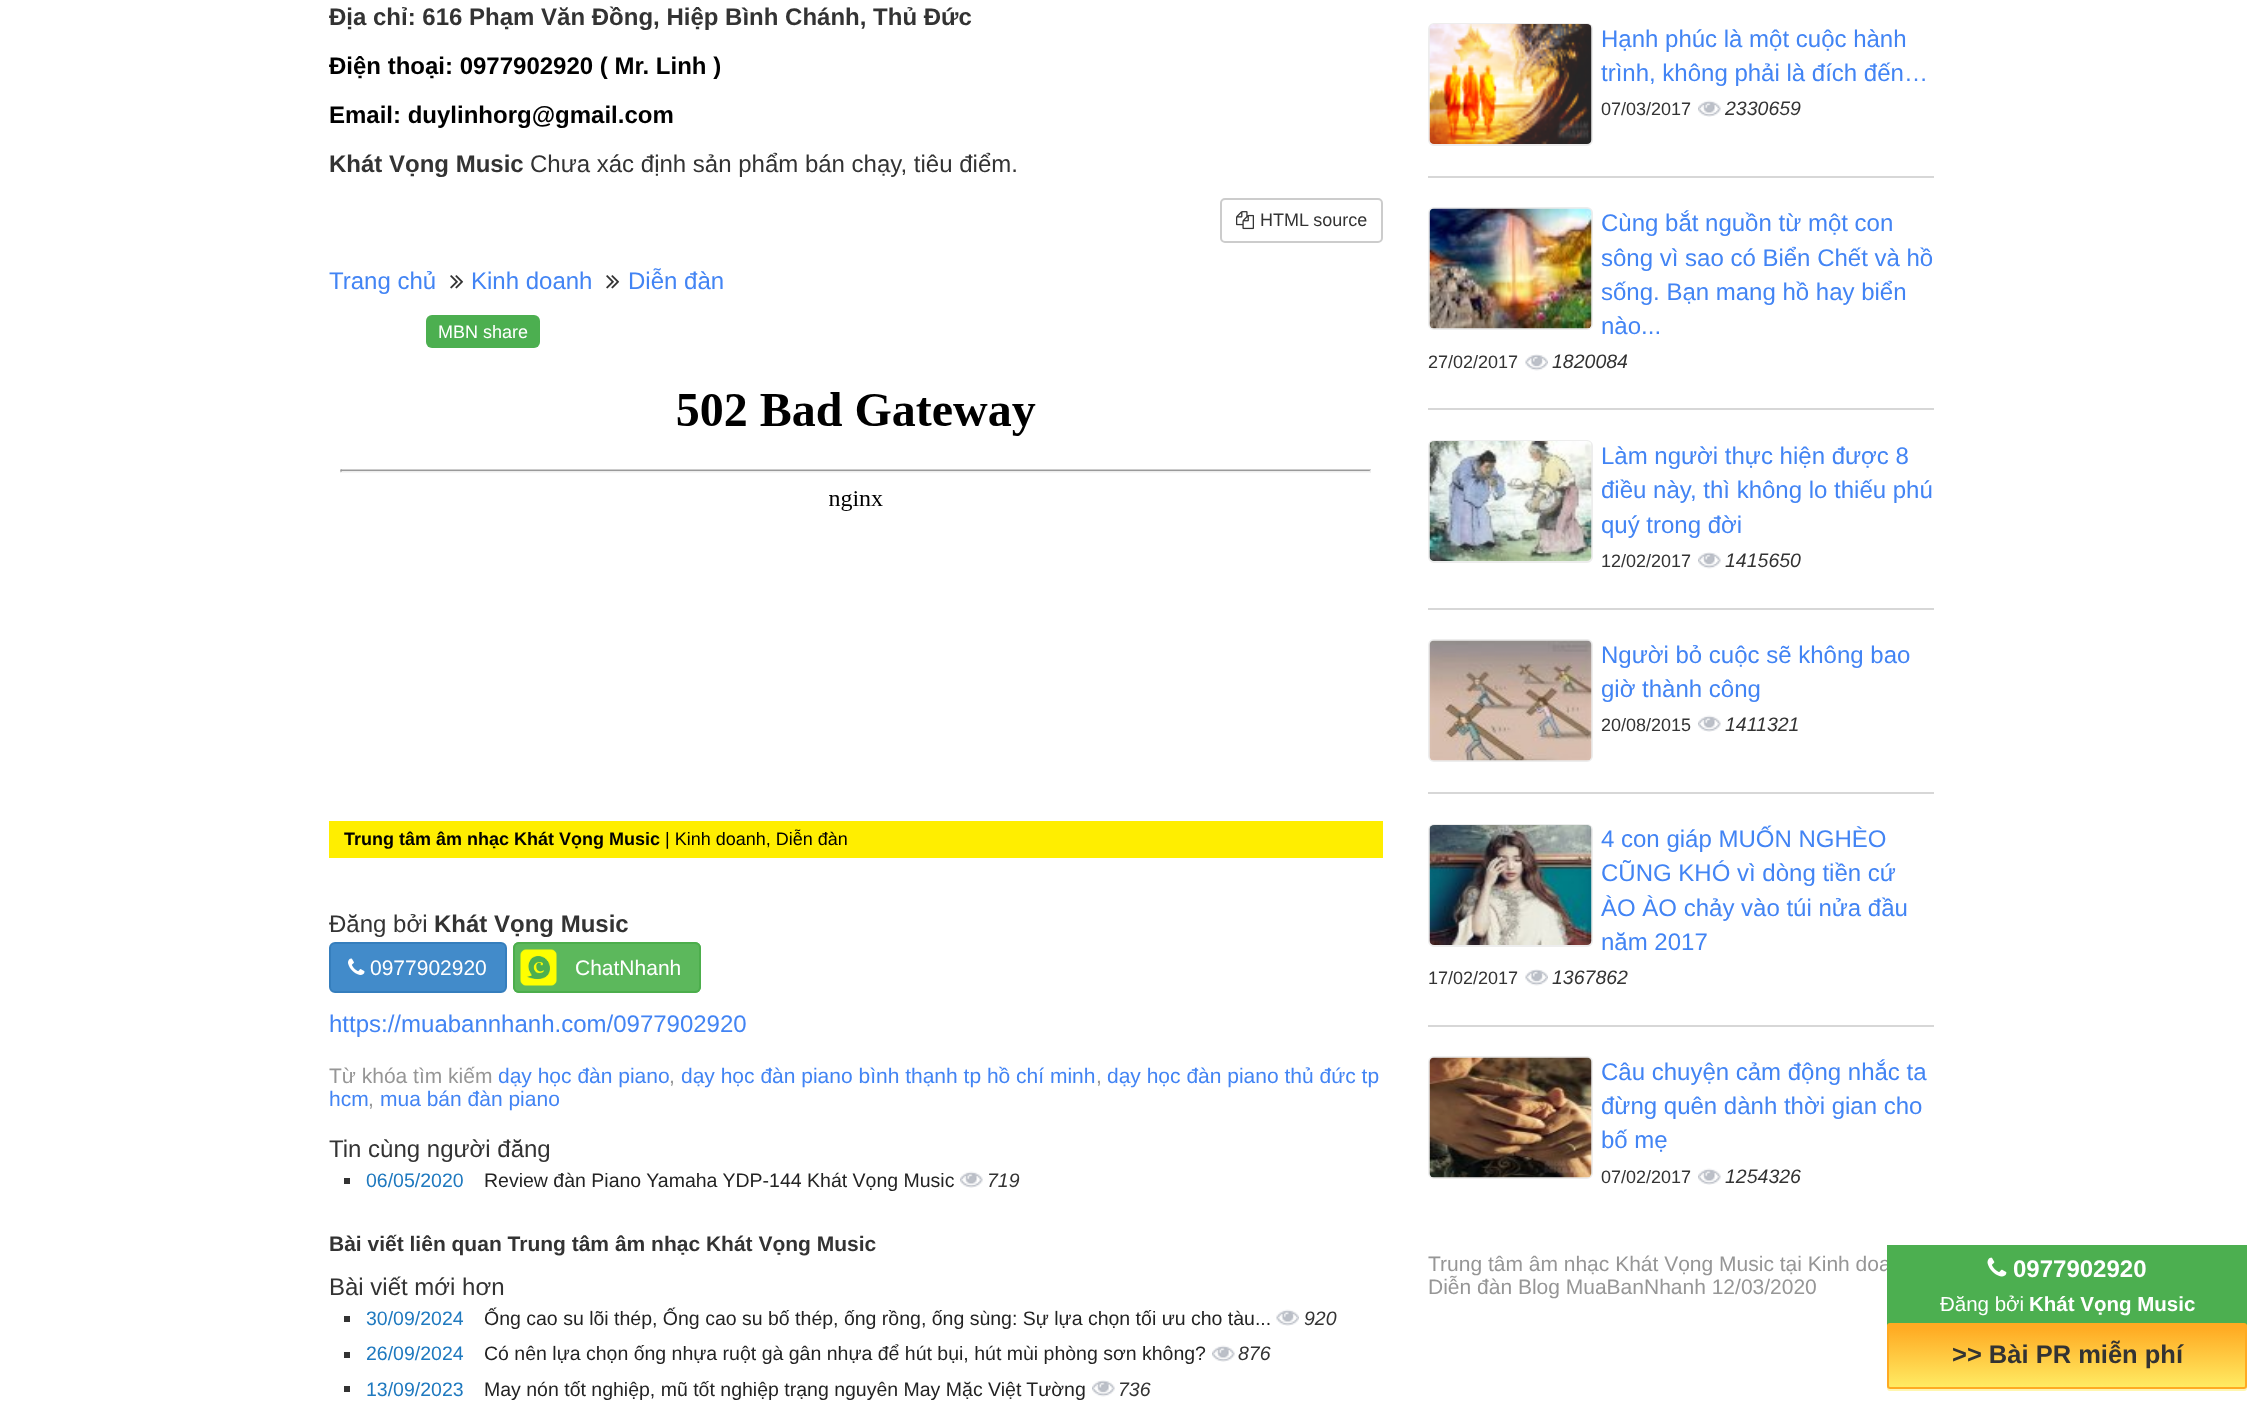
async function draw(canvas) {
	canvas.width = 2261;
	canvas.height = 1404;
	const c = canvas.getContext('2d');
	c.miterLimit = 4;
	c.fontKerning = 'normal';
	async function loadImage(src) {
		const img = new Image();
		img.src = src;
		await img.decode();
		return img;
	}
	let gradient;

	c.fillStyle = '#fff';
	c.fillRect(0, 0, 2261, 1404);
	c.font = 'bold 24px Liberation Sans';
	c.fillStyle = '#333';
	c.fillText('Địa chỉ: 616 Phạm Văn Đồng, Hiệp Bình Chánh, Thủ Đức', 329, 25);
	c.fillStyle = '#000';
	c.fillText('Điện thoại: 0977902920 ( Mr. Linh )', 329, 74);
	c.fillText('Email: duylinhorg@gmail.com', 329, 123);
	c.fillStyle = '#333';
	c.fillText('Khát Vọng Music', 329, 172);
	c.font = '24px Liberation Sans';
	c.fillText('Chưa xác định sản phẩm bán chạy, tiêu điểm.', 530, 172);
	c.beginPath();
	c.roundRect(1221, 199, 161, 43, 4);
	c.strokeStyle = '#ccc';
	c.lineWidth = 2;
	c.stroke();
	c.drawImage(await loadImage('img1.png'), 1236, 211, 18, 19);
	c.font = '18px Liberation Sans';
	c.fillText('HTML source', 1260, 226);
	c.font = '24px Liberation Sans';
	c.fillStyle = '#4284f4';
	c.fillText('Trang chủ', 329, 289);
	c.drawImage(await loadImage('img2.png'), 450, 275, 14, 14);
	c.fillText('Kinh doanh', 471, 289);
	c.drawImage(await loadImage('img2.png'), 606, 275, 14, 14);
	c.fillText('Diễn đàn', 628, 289);
	c.fillStyle = '#4caf50';
	c.beginPath();
	c.roundRect(426, 315, 114, 33, 6);
	c.fill();
	c.font = '18px Liberation Sans';
	c.fillStyle = '#fff';
	c.fillText('MBN share', 438, 338);
	c.drawImage(await loadImage('img3.png'), 340, 392, 1031, 119);
	c.fillStyle = '#fe0';
	c.fillRect(329, 821, 1054, 37);
	c.font = 'bold 18px Liberation Sans';
	c.fillStyle = '#000';
	c.fillText('Trung tâm âm nhạc Khát Vọng Music', 344, 845);
	c.font = '18px Liberation Sans';
	c.fillText('| Kinh doanh, Diễn đàn', 665, 845);
	c.font = '24px Liberation Sans';
	c.fillStyle = '#333';
	c.fillText('Đăng bởi', 329, 932);
	c.font = 'bold 24px Liberation Sans';
	c.fillText('Khát Vọng Music', 434, 932);
	c.fillStyle = '#428bca';
	c.beginPath();
	c.roundRect(330, 943, 176, 49, 5);
	c.fill();
	c.strokeStyle = '#357ebd';
	c.stroke();
	c.drawImage(await loadImage('img4.png'), 348, 958, 17, 17);
	c.font = '21px Liberation Sans';
	c.fillStyle = '#fff';
	c.fillText('0977902920', 370, 975);
	c.fillStyle = '#5cb85c';
	c.beginPath();
	c.roundRect(513, 942, 188, 51, 6);
	c.fill();
	c.drawImage(await loadImage('img5.png'), 520, 949, 37, 37);
	c.beginPath();
	c.roundRect(514, 943, 186, 49, 5);
	c.strokeStyle = '#4cae4c';
	c.stroke();
	c.fillStyle = '#fff';
	c.fillText('ChatNhanh', 575, 975);
	c.font = '24px Liberation Sans';
	c.fillStyle = '#4284f4';
	c.fillText('https://muabannhanh.com/0977902920', 329, 1032);
	c.font = '21px Liberation Sans';
	c.fillStyle = '#969696';
	c.fillText('Từ khóa tìm kiếm', 329, 1083);
	c.fillStyle = '#4284f4';
	c.fillText('dạy học đàn piano', 498, 1083);
	c.fillStyle = '#969696';
	c.fillText(',', 669, 1083);
	c.fillStyle = '#4284f4';
	c.fillText('dạy học đàn piano bình thạnh tp hồ chí minh', 681, 1083);
	c.fillStyle = '#969696';
	c.fillText(',', 1096, 1083);
	c.fillStyle = '#4284f4';
	c.fillText('dạy học đàn piano thủ đức tp', 1107, 1083);
	c.fillText('hcm', 329, 1106);
	c.fillStyle = '#969696';
	c.fillText(',', 368, 1106);
	c.fillStyle = '#4284f4';
	c.fillText('mua bán đàn piano', 380, 1106);
	c.font = '24px Liberation Sans';
	c.fillStyle = '#333';
	c.fillText('Tin cùng người đăng', 329, 1157);
	c.fillRect(344, 1178, 6, 6);
	c.font = '19.5px Liberation Sans';
	c.fillStyle = '#1f79bf';
	c.fillText('06/05/2020', 366, 1187);
	c.fillStyle = '#232323';
	c.fillText('Review đàn Piano Yamaha YDP-144 Khát Vọng Music', 484, 1187);
	c.drawImage(await loadImage('img6.png'), 960, 1171, 23, 17);
	c.font = 'italic 19.5px Liberation Sans';
	c.fillStyle = '#333';
	c.fillText('719', 987, 1187);
	c.font = 'bold 21px Liberation Sans';
	c.fillText('Bài viết liên quan Trung tâm âm nhạc Khát Vọng Music', 329, 1251);
	c.font = '24px Liberation Sans';
	c.fillText('Bài viết mới hơn', 329, 1295);
	c.fillRect(344, 1316, 6, 6);
	c.font = '19.5px Liberation Sans';
	c.fillStyle = '#1f79bf';
	c.fillText('30/09/2024', 366, 1325);
	c.fillStyle = '#232323';
	c.fillText('Ống cao su lõi thép, Ống cao su bố thép, ống rồng, ống sùng: Sự lựa chọn tối ưu cho tàu...', 484, 1325);
	c.drawImage(await loadImage('img7.png'), 1276, 1309, 23, 17);
	c.font = 'italic 19.5px Liberation Sans';
	c.fillStyle = '#333';
	c.fillText('920', 1304, 1325);
	c.fillRect(344, 1352, 6, 6);
	c.font = '19.5px Liberation Sans';
	c.fillStyle = '#1f79bf';
	c.fillText('26/09/2024', 366, 1360);
	c.fillStyle = '#232323';
	c.fillText('Có nên lựa chọn ống nhựa ruột gà gân nhựa để hút bụi, hút mùi phòng sơn không?', 484, 1360);
	c.drawImage(await loadImage('img8.png'), 1212, 1345, 23, 17);
	c.font = 'italic 19.5px Liberation Sans';
	c.fillStyle = '#333';
	c.fillText('876', 1238, 1360);
	c.fillRect(344, 1386, 6, 6);
	c.font = '19.5px Liberation Sans';
	c.fillStyle = '#1f79bf';
	c.fillText('13/09/2023', 366, 1396);
	c.fillStyle = '#232323';
	c.fillText('May nón tốt nghiệp, mũ tốt nghiệp trạng nguyên May Mặc Việt Tường', 484, 1396);
	c.drawImage(await loadImage('img9.png'), 1092, 1380, 23, 17);
	c.font = 'italic 19.5px Liberation Sans';
	c.fillStyle = '#333';
	c.fillText('736', 1118, 1396);
	c.fillStyle = '#d7d7d7';
	c.fillRect(1428, 176, 506, 2);
	c.beginPath();
	c.roundRect(1429, 24, 163, 121, 5);
	c.strokeStyle = '#ededed';
	c.stroke();
	c.drawImage(await loadImage('img10.png'), 1429, 24, 163, 120);
	c.font = '24px Liberation Sans';
	c.fillStyle = '#4284f4';
	c.fillText('Hạnh phúc là một cuộc hành', 1601, 47);
	c.fillText('trình, không phải là đích đến…', 1601, 81);
	c.font = '18px Liberation Sans';
	c.fillStyle = '#333';
	c.fillText('07/03/2017', 1601, 115);
	c.drawImage(await loadImage('img6.png'), 1698, 100, 23, 17);
	c.font = 'italic 19.5px Liberation Sans';
	c.fillText('2330659', 1725, 115);
	c.fillStyle = '#d7d7d7';
	c.fillRect(1428, 408, 506, 2);
	c.beginPath();
	c.roundRect(1429, 208, 163, 121, 5);
	c.stroke();
	c.drawImage(await loadImage('img11.png'), 1429, 208, 163, 121);
	c.font = '24px Liberation Sans';
	c.fillStyle = '#4284f4';
	for (const [text, x, y] of [
		['Cùng bắt nguồn từ một con', 1601, 231],
		['sông vì sao có Biển Chết và hồ', 1601, 266],
		['sống. Bạn mang hồ hay biển', 1601, 300],
		['nào...', 1601, 334],
	]) {
		c.fillText(text, x, y);
	}
	c.font = '18px Liberation Sans';
	c.fillStyle = '#333';
	c.fillText('27/02/2017', 1428, 368);
	c.drawImage(await loadImage('img12.png'), 1525, 354, 23, 17);
	c.font = 'italic 19.5px Liberation Sans';
	c.fillText('1820084', 1552, 368);
	c.fillStyle = '#d7d7d7';
	c.fillRect(1428, 608, 506, 2);
	c.beginPath();
	c.roundRect(1429, 441, 163, 121, 5);
	c.stroke();
	c.drawImage(await loadImage('img13.png'), 1429, 441, 163, 120);
	c.font = '24px Liberation Sans';
	c.fillStyle = '#4284f4';
	for (const [text, x, y] of [
		['Làm người thực hiện được 8', 1601, 464],
		['điều này, thì không lo thiếu phú', 1601, 498],
		['quý trong đời', 1601, 533],
	]) {
		c.fillText(text, x, y);
	}
	c.font = '18px Liberation Sans';
	c.fillStyle = '#333';
	c.fillText('12/02/2017', 1601, 567);
	c.drawImage(await loadImage('img14.png'), 1698, 552, 23, 17);
	c.font = 'italic 19.5px Liberation Sans';
	c.fillText('1415650', 1725, 567);
	c.fillStyle = '#d7d7d7';
	c.fillRect(1428, 792, 506, 2);
	c.beginPath();
	c.roundRect(1429, 640, 163, 121, 5);
	c.stroke();
	c.drawImage(await loadImage('img15.png'), 1429, 640, 163, 121);
	c.font = '24px Liberation Sans';
	c.fillStyle = '#4284f4';
	c.fillText('Người bỏ cuộc sẽ không bao', 1601, 663);
	c.fillText('giờ thành công', 1601, 697);
	c.font = '18px Liberation Sans';
	c.fillStyle = '#333';
	c.fillText('20/08/2015', 1601, 731);
	c.drawImage(await loadImage('img6.png'), 1698, 715, 23, 17);
	c.font = 'italic 19.5px Liberation Sans';
	c.fillText('1411321', 1725, 731);
	c.fillStyle = '#d7d7d7';
	c.fillRect(1428, 1025, 506, 2);
	c.beginPath();
	c.roundRect(1429, 825, 163, 121, 5);
	c.stroke();
	c.drawImage(await loadImage('img16.png'), 1429, 825, 163, 120);
	c.font = '24px Liberation Sans';
	c.fillStyle = '#4284f4';
	for (const [text, x, y] of [
		['4 con giáp MUỐN NGHÈO', 1601, 847],
		['CŨNG KHÓ vì dòng tiền cứ', 1601, 881],
		['ÀO ÀO chảy vào túi nửa đầu', 1601, 916],
		['năm 2017', 1601, 950],
	]) {
		c.fillText(text, x, y);
	}
	c.font = '18px Liberation Sans';
	c.fillStyle = '#333';
	c.fillText('17/02/2017', 1428, 984);
	c.drawImage(await loadImage('img12.png'), 1525, 969, 23, 17);
	c.font = 'italic 19.5px Liberation Sans';
	c.fillText('1367862', 1552, 984);
	c.beginPath();
	c.roundRect(1429, 1057, 163, 121, 5);
	c.stroke();
	c.drawImage(await loadImage('img17.png'), 1429, 1057, 163, 121);
	c.font = '24px Liberation Sans';
	c.fillStyle = '#4284f4';
	for (const [text, x, y] of [
		['Câu chuyện cảm động nhắc ta', 1601, 1080],
		['đừng quên dành thời gian cho', 1601, 1114],
		['bố mẹ', 1601, 1148],
	]) {
		c.fillText(text, x, y);
	}
	c.font = '18px Liberation Sans';
	c.fillStyle = '#333';
	c.fillText('07/02/2017', 1601, 1183);
	c.drawImage(await loadImage('img6.png'), 1698, 1168, 23, 17);
	c.font = 'italic 19.5px Liberation Sans';
	c.fillText('1254326', 1725, 1183);
	c.font = '21px Liberation Sans';
	c.fillStyle = '#969696';
	c.fillText('Trung tâm âm nhạc Khát Vọng Music tại Kinh doa', 1428, 1271);
	c.fillText('Diễn đàn Blog MuaBanNhanh 12/03/2020', 1428, 1294);
	c.fillStyle = '#4caf50';
	c.fillRect(1887, 1245, 360, 81);
	c.drawImage(await loadImage('img18.png'), 1987, 1257, 20, 20);
	c.font = 'bold 24px Liberation Sans';
	c.fillStyle = '#fff';
	c.fillText('0977902920', 2013, 1277);
	c.font = '20.5px Liberation Sans';
	c.fillText('Đăng bởi', 1940, 1311);
	c.font = 'bold 20.5px Liberation Sans';
	c.fillText('Khát Vọng Music', 2029, 1311);
	c.fillStyle = '#fff6af';
	c.beginPath();
	c.moveTo(1887, 1386);
	c.lineTo(1887, 1388);
	c.bezierCurveTo(1887, 1390, 1888, 1391, 1890, 1391);
	c.lineTo(2244, 1391);
	c.bezierCurveTo(2246, 1391, 2247, 1390, 2247, 1388);
	c.lineTo(2247, 1386);
	c.bezierCurveTo(2247, 1388, 2246, 1389, 2244, 1389);
	c.lineTo(1890, 1389);
	c.bezierCurveTo(1888, 1389, 1887, 1388, 1887, 1386);
	c.closePath();
	c.fill();
	c.save();
	c.beginPath();
	c.roundRect(1887, 1323, 360, 66, 3);
	c.clip();
	gradient = c.createLinearGradient(2067, 1325, 2067, 1388);
	gradient.addColorStop(0.05, '#ffab23');
	gradient.addColorStop(1, '#ffec64');
	c.fillStyle = gradient;
	c.fillRect(1887, 1325, 360, 63);
	c.restore();
	c.beginPath();
	c.roundRect(1888, 1324, 358, 64, 2);
	c.strokeStyle = '#fa2';
	c.stroke();
	c.font = 'bold 25.5px Liberation Sans';
	c.fillStyle = '#333';
	c.fillText('>> Bài PR miễn phí', 1952, 1363);
}

draw(document.querySelector('canvas'));
